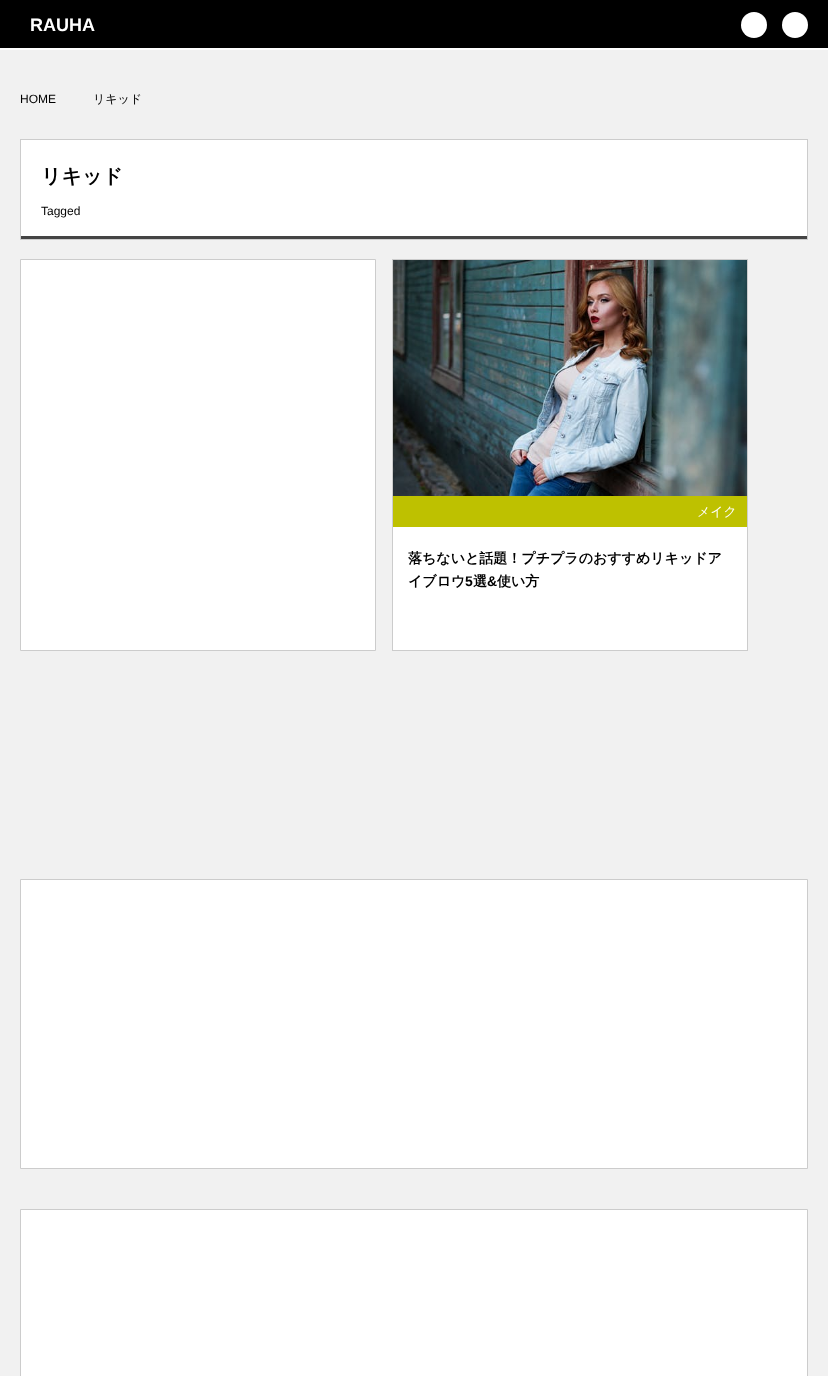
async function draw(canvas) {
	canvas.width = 828;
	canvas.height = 1376;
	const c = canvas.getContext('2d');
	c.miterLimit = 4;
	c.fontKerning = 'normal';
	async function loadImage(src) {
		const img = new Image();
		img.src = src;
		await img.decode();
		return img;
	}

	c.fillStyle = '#f1f1f1';
	c.fillRect(0, 0, 828, 1376);
	c.fillStyle = '#fff';
	c.fillRect(0, 48, 828, 2);
	c.fillStyle = '#000';
	c.fillRect(0, 0, 828, 48);
	c.font = 'bold 18px Liberation Sans';
	c.fillStyle = '#fff';
	c.fillText('RAUHA', 30, 31);
	c.beginPath();
	c.arc(754, 25, 13, 0, 2 * Math.PI);
	c.fill();
	c.beginPath();
	c.arc(795, 25, 13, 0, 2 * Math.PI);
	c.fill();
	c.font = '12px Liberation Sans';
	c.fillStyle = '#000';
	c.fillText('HOME', 20, 103);
	c.font = '500 12px WenQuanYi Zen Hei';
	c.fillText('リキッド', 93, 103);
	c.fillStyle = '#fff';
	c.fillRect(21, 140, 786, 96);
	c.strokeStyle = '#ccc';
	c.strokeRect(20.5, 139.5, 787, 100);
	c.font = 'bold 20px WenQuanYi Zen Hei';
	c.fillStyle = '#000';
	c.fillText('リキッド', 41, 183);
	c.font = '12px Liberation Sans';
	c.fillText('Tagged', 41, 215);
	c.fillStyle = '#444';
	c.fillRect(21, 236, 786, 3);
	c.fillStyle = '#fff';
	c.beginPath();
	c.rect(20.5, 259.5, 355, 391);
	c.fill();
	c.stroke();
	c.fillRect(393, 527, 354, 123);
	c.strokeRect(392.5, 259.5, 355, 391);
	c.drawImage(await loadImage('img1.png'), 393, 260, 354, 236);
	c.fillStyle = '#bec100';
	c.fillRect(393, 496, 354, 31);
	c.font = '500 13px WenQuanYi Zen Hei';
	c.fillStyle = '#fff';
	c.fillText('メイク', 697, 516);
	c.font = 'bold 14px WenQuanYi Zen Hei';
	c.fillStyle = '#000';
	c.fillText('落ちないと話題！プチプラのおすすめリキッドア', 408, 563);
	c.fillText('イブロウ', 408, 586);
	c.font = 'bold 14px Liberation Sans';
	c.fillText('5', 465, 586);
	c.font = 'bold 14px WenQuanYi Zen Hei';
	c.fillText('選', 473, 586);
	c.font = 'bold 14px Liberation Sans';
	c.fillText('&', 487, 586);
	c.font = 'bold 14px WenQuanYi Zen Hei';
	c.fillText('使い方', 497, 586);
	c.fillStyle = '#fff';
	c.beginPath();
	c.rect(20.5, 879.5, 787, 289);
	c.fill();
	c.stroke();
	c.beginPath();
	c.rect(20.5, 1209.5, 787, 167);
	c.fill();
	c.stroke();
}

draw(document.querySelector('canvas'));
